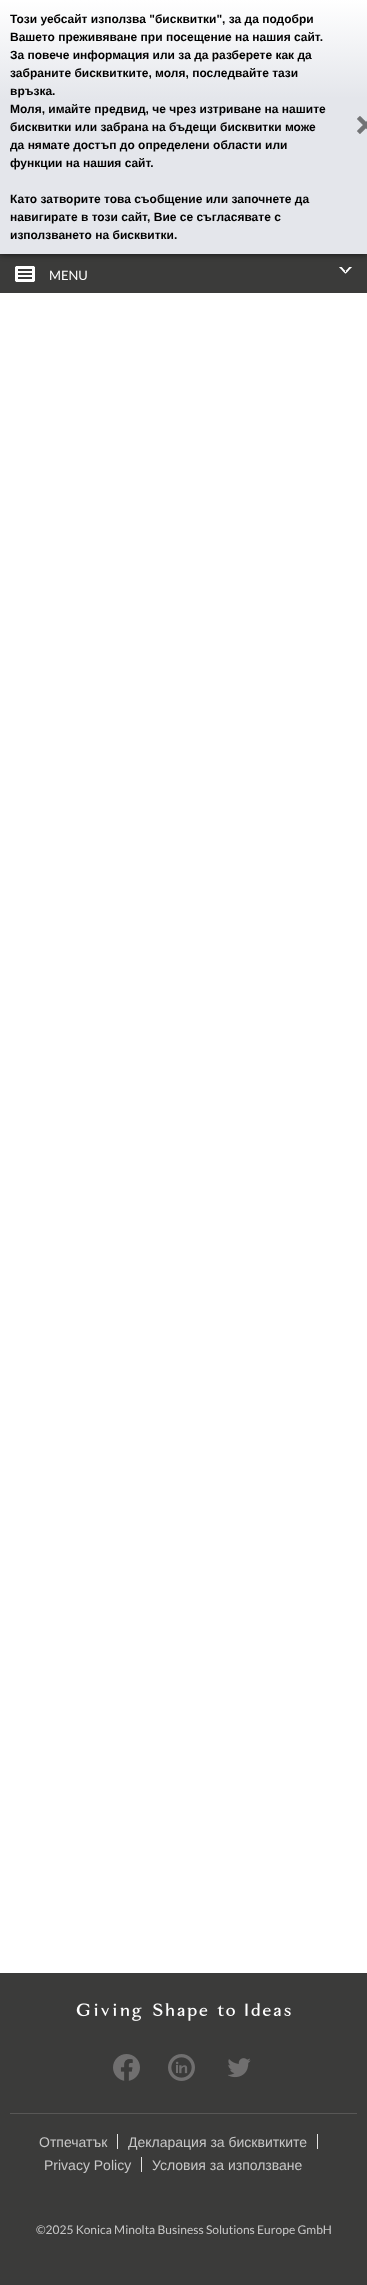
async function draw(canvas) {
	canvas.width = 367;
	canvas.height = 2285;
	const c = canvas.getContext('2d');
	c.miterLimit = 4;
	c.fontKerning = 'normal';
	async function loadImage(src) {
		const img = new Image();
		img.src = src;
		await img.decode();
		return img;
	}
	let gradient;

	c.fillStyle = '#fff';
	c.fillRect(0, 0, 367, 2285);
	c.fillStyle = '#3b3b3a';
	c.fillRect(0, 254, 367, 39);
	c.fillStyle = '#000000b3';
	c.filter = 'blur(3px)';
	c.beginPath();
	c.rect(0, 0, 367, 254);
	c.fill();
	c.filter = 'none';
	gradient = c.createLinearGradient(183, 0, 184, 254);
	gradient.addColorStop(0, '#fff');
	gradient.addColorStop(0.39, '#e4e6eb');
	c.fillStyle = gradient;
	c.fillRect(0, 0, 367, 254);
	c.font = 'bold 12px Liberation Sans';
	c.fillStyle = '#000';
	for (const [text, x, y] of [
		['Този уебсайт използва "бисквитки", за да подобри', 10, 23],
		['Вашето преживяване при посещение на нашия сайт.', 10, 41],
		['За повече информация или за да разберете как да', 10, 59],
		['забраните бисквитките, моля, последвайте тази', 10, 77],
		['връзка.', 10, 95],
		['Моля, имайте предвид, че чрез изтриване на нашите', 10, 113],
		['бисквитки или забрана на бъдещи бисквитки може', 10, 131],
	]) {
		c.fillText(text, x, y);
	}
	c.drawImage(await loadImage('img1.png'), 357, 116, 10, 18);
	for (const [text, x, y] of [
		['да нямате достъп до определени области или', 10, 149],
		['функции на нашия сайт.', 10, 167],
		['Като затворите това съобщение или започнете да', 10, 203],
		['навигирате в този сайт, Вие се съгласявате с', 10, 221],
		['използването на бисквитки.', 10, 239],
	]) {
		c.fillText(text, x, y);
	}
	c.drawImage(await loadImage('img2.png'), 15, 266, 20, 16);
	c.font = '13px Lato';
	c.fillStyle = '#fff';
	c.fillText('MENU', 49, 280);
	c.drawImage(await loadImage('img3.png'), 339, 267, 13, 7);
	c.fillStyle = '#3b3b3a';
	c.fillRect(0, 1973, 367, 312);
	c.drawImage(await loadImage('img4.png'), 76, 2003, 215, 18);
	c.drawImage(await loadImage('img5.png'), 113, 2054, 27, 27);
	c.drawImage(await loadImage('img6.png'), 168, 2054, 27, 27);
	c.drawImage(await loadImage('img7.png'), 228, 2058, 23, 20);
	c.fillStyle = '#585756';
	c.fillRect(10, 2113, 347, 1);
	c.fillStyle = '#e4e3e2';
	c.fillRect(117, 2134, 1, 15);
	c.font = '14px Liberation Sans';
	c.fillStyle = '#c7c7c7';
	c.fillText('Отпечатък', 39, 2147);
	c.fillStyle = '#e4e3e2';
	c.fillRect(317, 2134, 1, 15);
	c.fillStyle = '#c7c7c7';
	c.fillText('Декларация за бисквитките', 128, 2147);
	c.fillStyle = '#e4e3e2';
	c.fillRect(141, 2157, 1, 15);
	c.fillStyle = '#c7c7c7';
	c.fillText('Privacy Policy', 44, 2170);
	c.fillText('Условия за използване', 152, 2170);
	c.font = '12px Lato';
	c.fillText('©2025 Konica Minolta Business Solutions Europe GmbH', 36, 2234);
}

draw(document.querySelector('canvas'));
